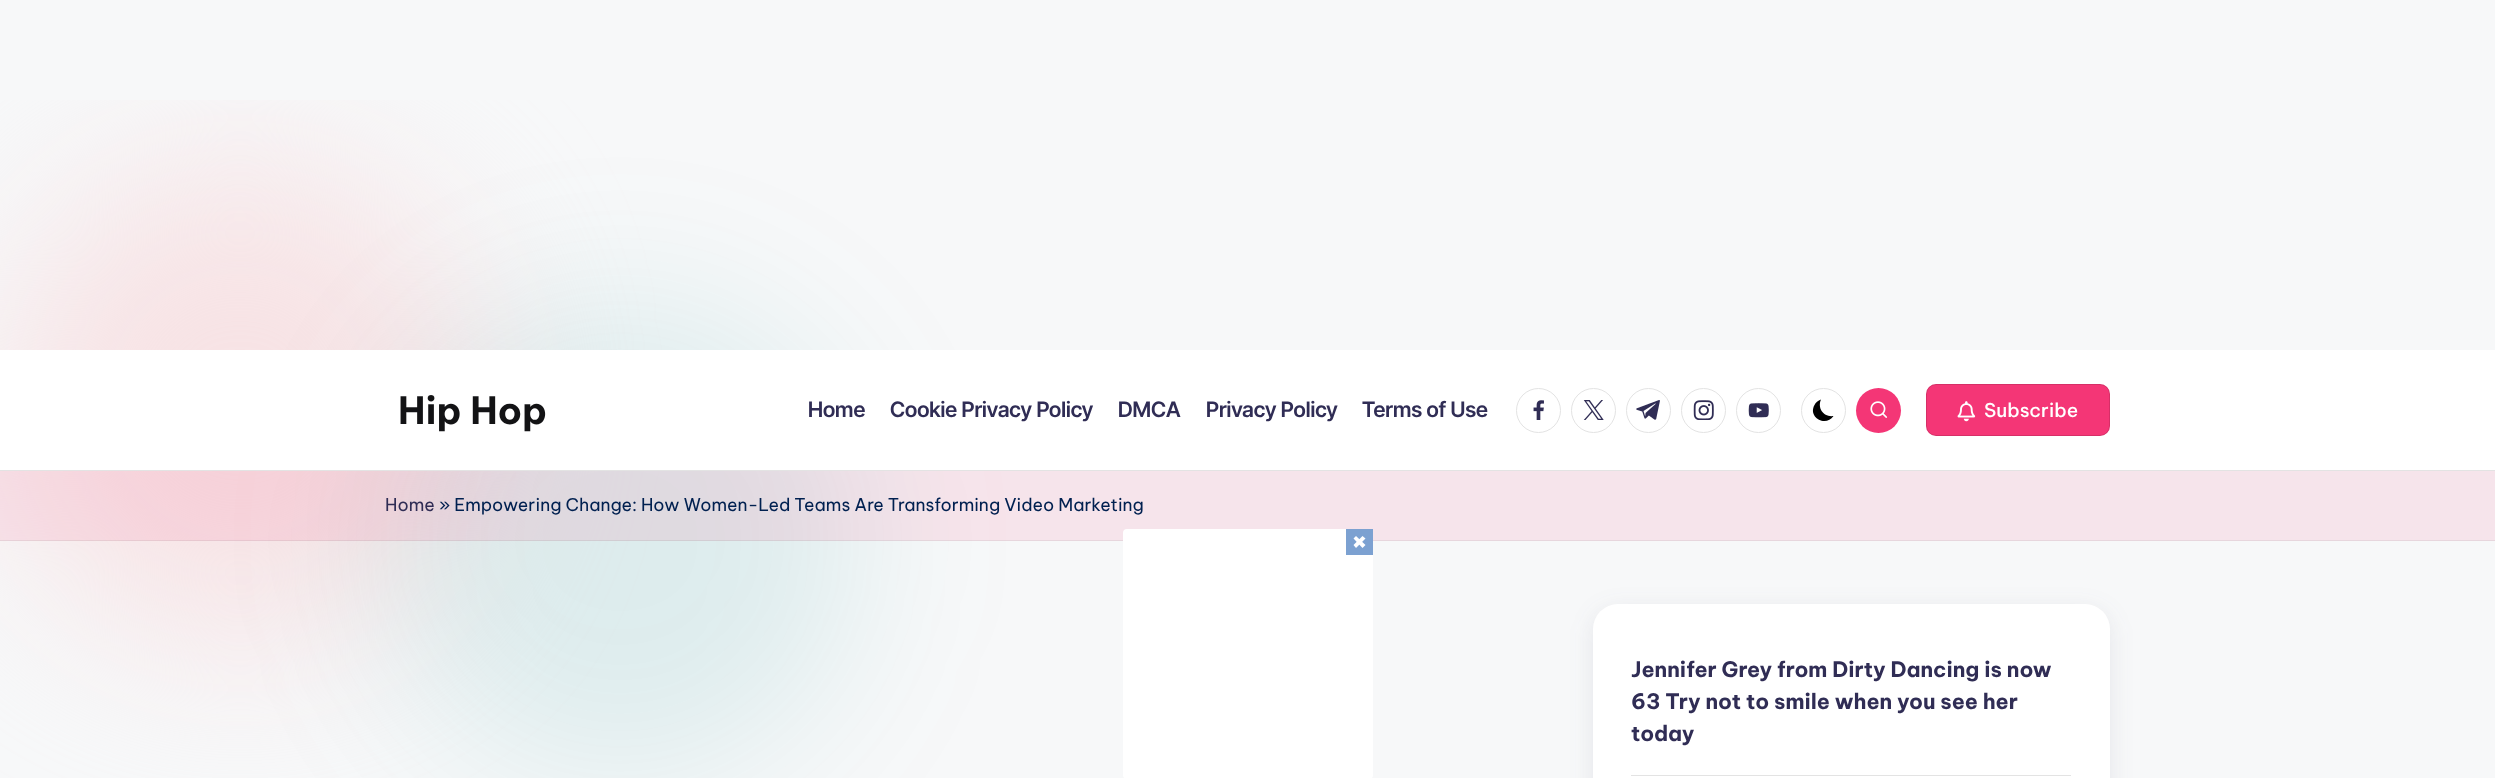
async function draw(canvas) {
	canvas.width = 2495;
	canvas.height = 778;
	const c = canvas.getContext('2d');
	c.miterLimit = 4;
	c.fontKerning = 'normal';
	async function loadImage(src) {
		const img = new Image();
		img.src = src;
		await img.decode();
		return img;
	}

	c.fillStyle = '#f7f8f9';
	c.fillRect(0, 0, 2495, 778);
	c.save();
	c.beginPath();
	c.rect(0, 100, 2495, 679);
	c.clip();
	c.fillStyle = '#f7e3e5';
	c.filter = 'blur(80px)';
	c.beginPath();
	c.roundRect(0, 163, 480, 480, 240);
	c.fill();
	c.filter = 'none';
	c.restore();
	c.fillStyle = '#04868b1a';
	c.filter = 'blur(80px)';
	c.beginPath();
	c.roundRect(380, 300, 480, 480, 240);
	c.fill();
	c.filter = 'none';
	c.fillStyle = '#fff';
	c.fillRect(0, 350, 2495, 120);
	c.fillStyle = '#e3e3e3';
	c.fillRect(0, 470, 2495, 1);
	c.font = 'bold 37.5px Be Vietnam Pro';
	c.fillStyle = '#131315';
	c.fillText('Hip Hop', 398, 424);
	c.font = '600 21.25px Inter Tight';
	c.fillStyle = '#302d55';
	for (const [text, x, y] of [
		['Home', 808, 417],
		['Cookie Privacy Policy', 890, 417],
		['DMCA', 1118, 417],
		['Privacy Policy', 1206, 417],
		['Terms of Use', 1362, 417],
	]) {
		c.fillText(text, x, y);
	}
	c.beginPath();
	c.arc(1538.5, 410.5, 22, 0, 2 * Math.PI);
	c.strokeStyle = '#e3e3e3';
	c.stroke();
	c.drawImage(await loadImage('img1.png'), 1533, 400, 11, 20);
	c.beginPath();
	c.arc(1593.5, 410.5, 22, 0, 2 * Math.PI);
	c.stroke();
	c.drawImage(await loadImage('img2.png'), 1583, 400, 21, 20);
	c.beginPath();
	c.arc(1648.5, 410.5, 22, 0, 2 * Math.PI);
	c.stroke();
	c.drawImage(await loadImage('img3.png'), 1636, 400, 24, 20);
	c.beginPath();
	c.arc(1703.5, 410.5, 22, 0, 2 * Math.PI);
	c.stroke();
	c.drawImage(await loadImage('img4.png'), 1693, 400, 21, 20);
	c.beginPath();
	c.arc(1758.5, 410.5, 22, 0, 2 * Math.PI);
	c.stroke();
	c.drawImage(await loadImage('img5.png'), 1748, 403, 21, 15);
	c.beginPath();
	c.arc(1823.5, 410.5, 22, 0, 2 * Math.PI);
	c.stroke();
	c.fillStyle = '#000';
	c.beginPath();
	c.moveTo(1833.5, 416);
	c.bezierCurveTo(1824, 417.5, 1817, 408.5, 1821, 399.5);
	c.bezierCurveTo(1818, 400.5, 1815.5, 402.5, 1814.5, 405);
	c.bezierCurveTo(1807.5, 417.5, 1826, 427.5, 1833.5, 416);
	c.closePath();
	c.fill();
	c.fillStyle = '#f43676';
	c.beginPath();
	c.arc(1878.5, 410.5, 22.5, 0, 2 * Math.PI);
	c.fill();
	c.drawImage(await loadImage('img6.png'), 1870, 401, 18, 17);
	c.beginPath();
	c.roundRect(1926, 384, 184, 52, 10);
	c.fill();
	c.beginPath();
	c.roundRect(1926.5, 384.5, 183, 51, 9.5);
	c.strokeStyle = '#0000001f';
	c.stroke();
	c.drawImage(await loadImage('img7.png'), 1957, 401, 19, 21);
	c.font = '500 19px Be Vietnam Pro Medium';
	c.fillStyle = '#fff';
	c.fillText('Subscribe', 1984, 417);
	c.fillStyle = '#f436761a';
	c.fillRect(0, 471, 2495, 70);
	c.fillStyle = '#0000000f';
	c.fillRect(0, 540, 2495, 1);
	c.font = '17.5px Be Vietnam Pro';
	c.fillStyle = '#302d55';
	c.fillText('Home', 385, 511);
	c.fillStyle = '#002050';
	c.fillText('» Empowering Change: How Women-Led Teams Are Transforming Video Marketing', 439, 511);
	c.fillStyle = '#4543601a';
	c.filter = 'blur(12.5px)';
	c.beginPath();
	c.roundRect(1593, 610, 517, 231, 25);
	c.fill();
	c.filter = 'none';
	c.fillStyle = '#fff';
	c.beginPath();
	c.roundRect(1593, 604, 517, 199, 25);
	c.fill();
	c.font = 'bold 21.25px Be Vietnam Pro';
	c.fillStyle = '#302d55';
	for (const [text, x, y] of [
		['Jennifer Grey from Dirty Dancing is now', 1631, 677],
		['63 Try not to smile when you see her', 1631, 709],
		['today', 1631, 741],
	]) {
		c.fillText(text, x, y);
	}
	c.fillStyle = '#e3e3e3';
	c.fillRect(1631, 775, 440, 1);
	c.fillStyle = '#fff';
	c.beginPath();
	c.roundRect(1123, 529, 250, 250, 4);
	c.fill();
	c.fillStyle = '#7ca1d1';
	c.fillRect(1346, 529, 27, 26);
	c.fillStyle = '#fff';
	c.beginPath();
	c.moveTo(1353.5, 545);
	c.lineTo(1362.5, 536);
	c.lineTo(1365.5, 538.5);
	c.lineTo(1356, 548);
	c.closePath();
	c.fill();
	c.beginPath();
	c.moveTo(1356, 536);
	c.lineTo(1365.5, 545);
	c.lineTo(1362.5, 548);
	c.lineTo(1353.5, 538.5);
	c.closePath();
	c.fill();
}

draw(document.querySelector('canvas'));
